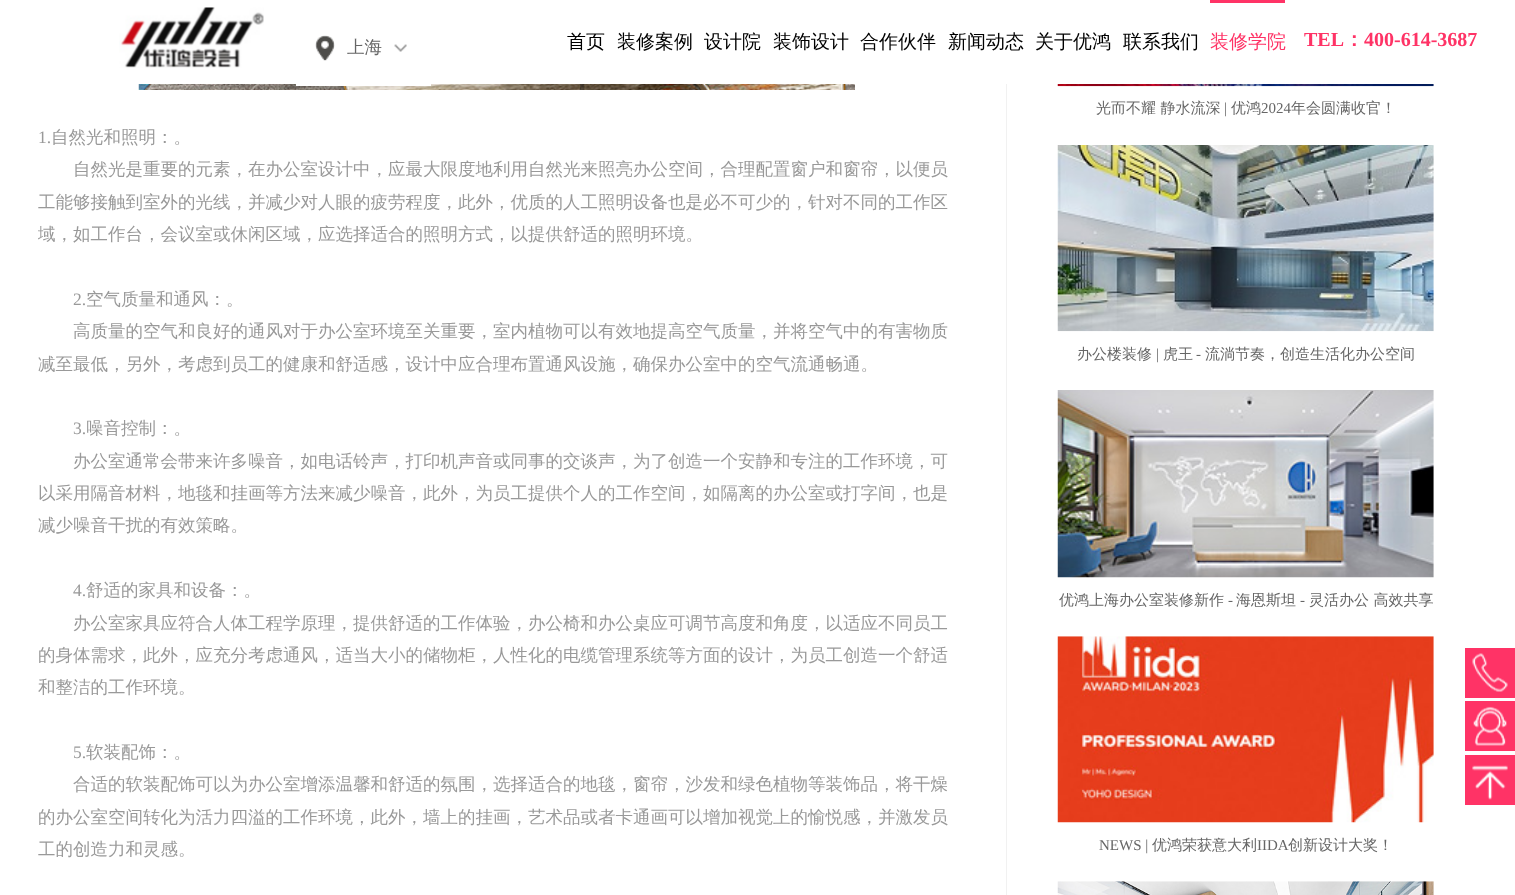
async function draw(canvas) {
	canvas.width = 1515;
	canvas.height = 895;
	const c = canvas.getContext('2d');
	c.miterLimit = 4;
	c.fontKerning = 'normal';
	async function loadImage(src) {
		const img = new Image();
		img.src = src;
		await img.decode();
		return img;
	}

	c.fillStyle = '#fff';
	c.fillRect(0, 0, 1515, 895);
	c.drawImage(await loadImage('img1.png'), 119, 7, 145, 61);
	c.drawImage(await loadImage('img4.png'), 138, 84, 717, 6);
	c.fillRect(296, 84, 135, 2);
	c.drawImage(await loadImage('img2.png'), 315, 35, 20, 26);
	c.font = '500 17.5px WenQuanYi Zen Hei';
	c.fillStyle = '#666';
	c.fillText('上海', 347, 53);
	c.drawImage(await loadImage('img3.png'), 394, 44, 13, 8);
	c.font = '500 19px WenQuanYi Zen Hei';
	c.fillStyle = '#000';
	for (const [text, x, y] of [
		['首页', 567, 48],
		['装修案例', 617, 48],
		['设计院', 704, 48],
		['装饰设计', 773, 48],
		['合作伙伴', 860, 48],
		['新闻动态', 948, 48],
		['关于优鸿', 1035, 48],
		['联系我们', 1123, 48],
	]) {
		c.fillText(text, x, y);
	}
	c.fillStyle = '#f36';
	c.fillRect(1210, 0, 75, 3);
	c.fillText('装修学院', 1210, 48);
	c.font = 'bold 20px Liberation Serif';
	c.fillText('TEL', 1304, 46);
	c.font = 'bold 20px WenQuanYi Zen Hei';
	c.fillText('：', 1344, 46);
	c.font = 'bold 20px Liberation Serif';
	c.fillText('400-614-3687', 1364, 46);
	c.fillStyle = '#f1f1f1';
	c.fillRect(1006, 84, 1, 811);
	c.font = '17.5px Liberation Serif';
	c.fillStyle = '#999';
	c.fillText('1.', 38, 143);
	c.font = '500 17.5px WenQuanYi Zen Hei';
	for (const [text, x, y] of [
		['自然光和照明：。', 51, 143],
		['自然光是重要的元素，在办公室设计中，应最大限度地利用自然光来照亮办公空间，合理配置窗户和窗帘，以便员', 73, 175],
		['工能够接触到室外的光线，并减少对人眼的疲劳程度，此外，优质的人工照明设备也是必不可少的，针对不同的工作区', 38, 208],
		['域，如工作台，会议室或休闲区域，应选择适合的照明方式，以提供舒适的照明环境。', 38, 240],
	]) {
		c.fillText(text, x, y);
	}
	c.font = '17.5px Liberation Serif';
	c.fillText('2.', 73, 305);
	c.font = '500 17.5px WenQuanYi Zen Hei';
	for (const [text, x, y] of [
		['空气质量和通风：。', 86, 305],
		['高质量的空气和良好的通风对于办公室环境至关重要，室内植物可以有效地提高空气质量，并将空气中的有害物质', 73, 337],
		['减至最低，另外，考虑到员工的健康和舒适感，设计中应合理布置通风设施，确保办公室中的空气流通畅通。', 38, 370],
	]) {
		c.fillText(text, x, y);
	}
	c.font = '17.5px Liberation Serif';
	c.fillText('3.', 73, 434);
	c.font = '500 17.5px WenQuanYi Zen Hei';
	for (const [text, x, y] of [
		['噪音控制：。', 86, 434],
		['办公室通常会带来许多噪音，如电话铃声，打印机声音或同事的交谈声，为了创造一个安静和专注的工作环境，可', 73, 467],
		['以采用隔音材料，地毯和挂画等方法来减少噪音，此外，为员工提供个人的工作空间，如隔离的办公室或打字间，也是', 38, 499],
		['减少噪音干扰的有效策略。', 38, 531],
	]) {
		c.fillText(text, x, y);
	}
	c.font = '17.5px Liberation Serif';
	c.fillText('4.', 73, 596);
	c.font = '500 17.5px WenQuanYi Zen Hei';
	for (const [text, x, y] of [
		['舒适的家具和设备：。', 86, 596],
		['办公室家具应符合人体工程学原理，提供舒适的工作体验，办公椅和办公桌应可调节高度和角度，以适应不同员工', 73, 629],
		['的身体需求，此外，应充分考虑通风，适当大小的储物柜，人性化的电缆管理系统等方面的设计，为员工创造一个舒适', 38, 661],
		['和整洁的工作环境。', 38, 693],
	]) {
		c.fillText(text, x, y);
	}
	c.font = '17.5px Liberation Serif';
	c.fillText('5.', 73, 758);
	c.font = '500 17.5px WenQuanYi Zen Hei';
	for (const [text, x, y] of [
		['软装配饰：。', 86, 758],
		['合适的软装配饰可以为办公室增添温馨和舒适的氛围，选择适合的地毯，窗帘，沙发和绿色植物等装饰品，将干燥', 73, 790],
		['的办公室空间转化为活力四溢的工作环境，此外，墙上的挂画，艺术品或者卡通画可以增加视觉上的愉悦感，并激发员', 38, 823],
		['工的创造力和灵感。', 38, 855],
	]) {
		c.fillText(text, x, y);
	}
	c.drawImage(await loadImage('img5.png'), 1057, 84, 377, 3);
	c.font = '500 15px WenQuanYi Zen Hei';
	c.fillStyle = '#666';
	c.fillText('光而不耀 静水流深', 1096, 113);
	c.font = '15px Liberation Serif';
	c.fillText('|', 1224, 113);
	c.font = '500 15px WenQuanYi Zen Hei';
	c.fillText('优鸿', 1231, 113);
	c.font = '15px Liberation Serif';
	c.fillText('2024', 1261, 113);
	c.font = '500 15px WenQuanYi Zen Hei';
	c.fillText('年会圆满收官！', 1291, 113);
	c.drawImage(await loadImage('img6.png'), 1057, 145, 377, 187);
	c.fillText('办公楼装修', 1077, 359);
	c.font = '15px Liberation Serif';
	c.fillText('|', 1156, 359);
	c.font = '500 15px WenQuanYi Zen Hei';
	c.fillText('虎王', 1163, 359);
	c.font = '15px Liberation Serif';
	c.fillText('-', 1196, 359);
	c.font = '500 15px WenQuanYi Zen Hei';
	c.fillText('流淌节奏，创造生活化办公空间', 1205, 359);
	c.drawImage(await loadImage('img7.png'), 1057, 390, 377, 188);
	c.fillText('优鸿上海办公室装修新作', 1059, 605);
	c.font = '15px Liberation Serif';
	c.fillText('-', 1228, 605);
	c.font = '500 15px WenQuanYi Zen Hei';
	c.fillText('海恩斯坦', 1236, 605);
	c.font = '15px Liberation Serif';
	c.fillText('-', 1300, 605);
	c.font = '500 15px WenQuanYi Zen Hei';
	c.fillText('灵活办公 高效共享', 1309, 605);
	c.drawImage(await loadImage('img8.png'), 1057, 636, 377, 187);
	c.font = '15px Liberation Serif';
	c.fillText('NEWS |', 1099, 850);
	c.font = '500 15px WenQuanYi Zen Hei';
	c.fillText('优鸿荣获意大利', 1152, 850);
	c.font = '15px Liberation Serif';
	c.fillText('IIDA', 1257, 850);
	c.font = '500 15px WenQuanYi Zen Hei';
	c.fillText('创新设计大奖！', 1288, 850);
	c.drawImage(await loadImage('img9.png'), 1057, 881, 377, 14);
	c.fillStyle = '#f36';
	c.fillRect(1465, 648, 50, 50);
	c.drawImage(await loadImage('img10.png'), 1472, 653, 36, 39);
	c.fillRect(1465, 701, 50, 50);
	c.drawImage(await loadImage('img11.png'), 1473, 706, 34, 40);
	c.fillRect(1465, 755, 50, 50);
	c.drawImage(await loadImage('img12.png'), 1472, 765, 36, 35);
}

draw(document.querySelector('canvas'));
